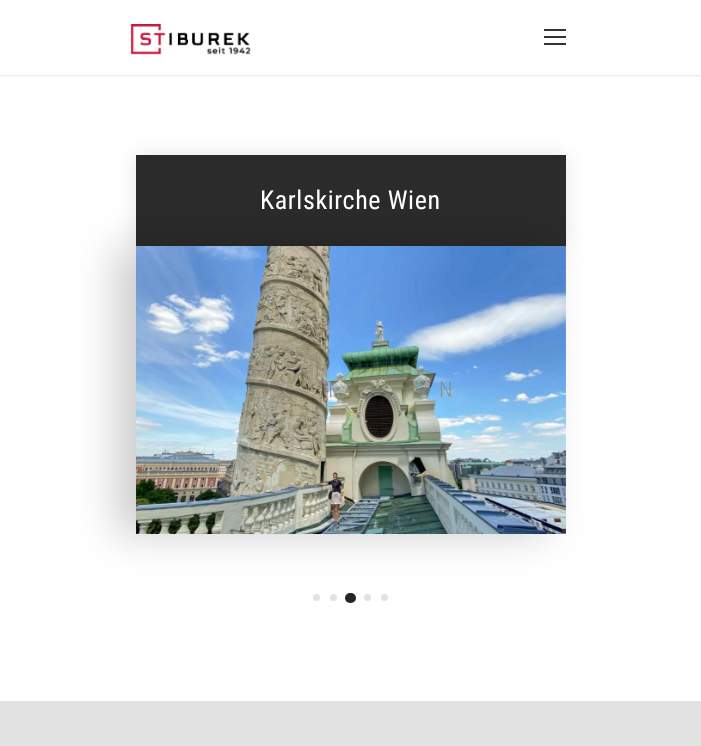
async function draw(canvas) {
	canvas.width = 701;
	canvas.height = 746;
	const c = canvas.getContext('2d');
	c.miterLimit = 4;
	c.fontKerning = 'normal';
	async function loadImage(src) {
		const img = new Image();
		img.src = src;
		await img.decode();
		return img;
	}

	c.fillStyle = '#fff';
	c.fillRect(0, 0, 701, 746);
	c.save();
	c.beginPath();
	c.rect(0, 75, 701, 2);
	c.clip();
	c.fillStyle = '#0000001a';
	c.filter = 'blur(1px)';
	c.beginPath();
	c.rect(0, 1, 701, 75);
	c.fill();
	c.filter = 'none';
	c.restore();
	c.drawImage(await loadImage('img1.png'), 130, 24, 121, 31);
	for (const [x, y, w, h, color] of [
		[544, 29, 22, 2, '#333'],
		[544, 36, 22, 2, '#333'],
		[544, 43, 22, 2, '#333'],
	]) {
		c.fillStyle = color;
		c.fillRect(x, y, w, h);
	}
	c.fillStyle = '#0000001a';
	c.filter = 'blur(10px)';
	c.beginPath();
	c.rect(136, 155, 430, 91);
	c.fill();
	c.filter = 'none';
	c.fillStyle = '#2b2b2b';
	c.fillRect(136, 155, 430, 91);
	c.letterSpacing = '0.6px';
	c.font = '26px Roboto Condensed';
	c.fillStyle = '#fff';
	c.fillText('Karlskirche Wien', 260, 209);
	c.fillStyle = '#00000033';
	c.filter = 'blur(20px)';
	c.beginPath();
	c.rect(116, 246, 430, 288);
	c.fill();
	c.filter = 'none';
	c.drawImage(await loadImage('img2.png'), 136, 246, 430, 288);
	c.letterSpacing = '2px';
	c.font = '300 22px Roboto Condensed';
	c.fillStyle = '#889188';
	c.fillText('I', 328, 397);
	c.fillText('N', 439, 397);
	c.fillStyle = '#e2e2e2';
	c.beginPath();
	c.arc(316.5, 597.5, 3.5, 0, 2 * Math.PI);
	c.fill();
	c.beginPath();
	c.arc(333.5, 597.5, 3.5, 0, 2 * Math.PI);
	c.fill();
	c.fillStyle = '#262626';
	c.beginPath();
	c.roundRect(345, 593, 11, 10, 5);
	c.fill();
	c.fillStyle = '#e2e2e2';
	c.beginPath();
	c.arc(367.5, 597.5, 3.5, 0, 2 * Math.PI);
	c.fill();
	c.beginPath();
	c.arc(384.5, 597.5, 3.5, 0, 2 * Math.PI);
	c.fill();
	c.fillRect(0, 701, 701, 45);
}

draw(document.querySelector('canvas'));
